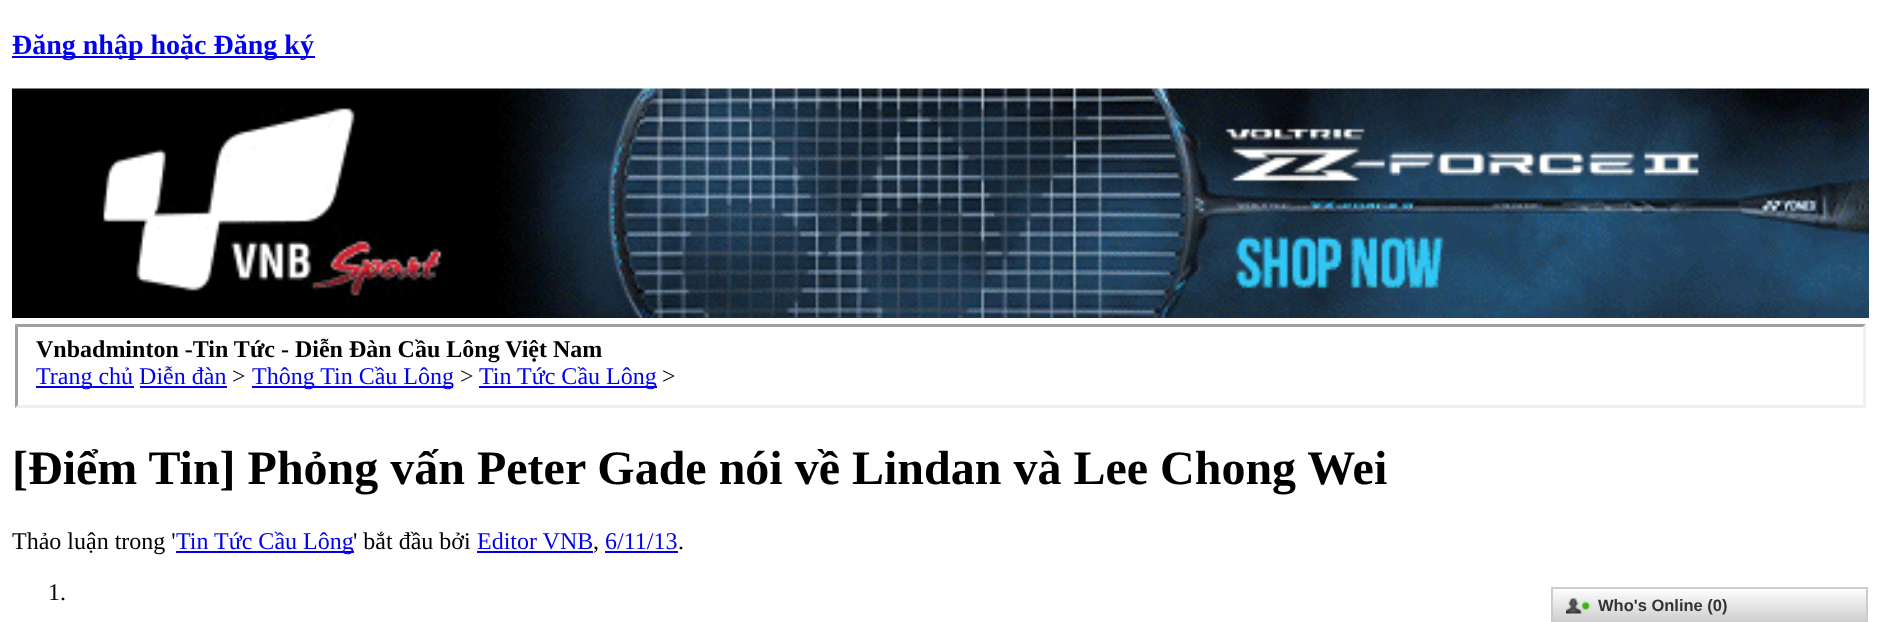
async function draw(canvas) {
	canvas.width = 1880;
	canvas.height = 622;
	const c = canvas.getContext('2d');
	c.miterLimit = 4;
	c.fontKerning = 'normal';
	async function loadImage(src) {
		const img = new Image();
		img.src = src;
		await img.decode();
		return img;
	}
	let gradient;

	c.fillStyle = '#fff';
	c.fillRect(0, 0, 1880, 622);
	c.fillStyle = '#00e';
	c.fillRect(12, 56, 303, 2);
	c.font = 'bold 28px Liberation Serif';
	c.fillText('Đăng nhập hoặc Đăng ký', 12, 54);
	c.drawImage(await loadImage('img1.png'), 12, 88, 1857, 230);
	c.fillStyle = '#9f9f9f';
	c.beginPath();
	c.moveTo(15, 324);
	c.lineTo(1866, 324);
	c.lineTo(1863, 327);
	c.lineTo(18, 327);
	c.closePath();
	c.fill();
	c.fillStyle = '#efefef';
	c.beginPath();
	c.moveTo(1866, 324);
	c.lineTo(1866, 408);
	c.lineTo(1863, 405);
	c.lineTo(1863, 327);
	c.closePath();
	c.fill();
	c.beginPath();
	c.moveTo(1866, 408);
	c.lineTo(15, 408);
	c.lineTo(18, 405);
	c.lineTo(1863, 405);
	c.closePath();
	c.fill();
	c.fillStyle = '#9f9f9f';
	c.beginPath();
	c.moveTo(15, 408);
	c.lineTo(15, 324);
	c.lineTo(18, 327);
	c.lineTo(18, 405);
	c.closePath();
	c.fill();
	c.font = 'bold 24px Liberation Serif';
	c.fillStyle = '#000';
	c.fillText('Vnbadminton -Tin Tức - Diễn Đàn Cầu Lông Việt Nam', 36, 357);
	c.fillStyle = '#00e';
	c.fillRect(36, 386, 98, 2);
	c.font = '24px Liberation Serif';
	c.fillText('Trang chủ Diễn đàn', 36, 384);
	c.fillRect(140, 386, 87, 2);
	c.fillStyle = '#000';
	c.fillText('>', 232, 384);
	c.fillStyle = '#00e';
	c.fillRect(252, 386, 201, 2);
	c.fillText('Thông Tin Cầu Lông', 252, 384);
	c.fillStyle = '#000';
	c.fillText('>', 460, 384);
	c.fillStyle = '#00e';
	c.fillRect(479, 386, 178, 2);
	c.fillText('Tin Tức Cầu Lông', 479, 384);
	c.fillStyle = '#000';
	c.fillText('>', 662, 384);
	c.font = 'bold 48px Liberation Serif';
	c.fillText('[Điểm Tin] Phỏng vấn Peter Gade nói về Lindan và Lee Chong Wei', 12, 484);
	c.font = '24px Liberation Serif';
	c.fillText('Thảo luận trong \'', 12, 549);
	c.fillStyle = '#00e';
	c.fillRect(176, 551, 178, 2);
	c.fillText('Tin Tức Cầu Lông', 176, 549);
	c.fillStyle = '#000';
	c.fillText('\' bắt đầu bởi', 353, 549);
	c.fillStyle = '#00e';
	c.fillText('Editor VNB', 477, 549);
	c.fillRect(477, 551, 116, 2);
	c.fillStyle = '#000';
	c.fillText(',', 593, 549);
	c.fillStyle = '#00e';
	c.fillText('6/11/13', 605, 549);
	c.fillRect(605, 551, 73, 2);
	c.fillStyle = '#000';
	c.fillText('.', 678, 549);
	c.fillText('1.', 48, 600);
	gradient = c.createLinearGradient(1553, 588, 1553, 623);
	gradient.addColorStop(0, '#fff');
	gradient.addColorStop(1, '#ccc');
	c.fillStyle = gradient;
	c.fillRect(1553, 590, 313, 32);
	for (const [x, y, w, h, color] of [
		[1551, 587, 317, 2, '#ccc'],
		[1866, 587, 2, 35, '#ccc'],
		[1551, 587, 2, 35, '#ccc'],
	]) {
		c.fillStyle = color;
		c.fillRect(x, y, w, h);
	}
	c.drawImage(await loadImage('img2.png'), 1566, 598, 25, 16);
	c.font = 'bold 16.5px Liberation Sans';
	c.fillStyle = '#333';
	c.fillText('Who\'s Online (0)', 1598, 611);
}

draw(document.querySelector('canvas'));
